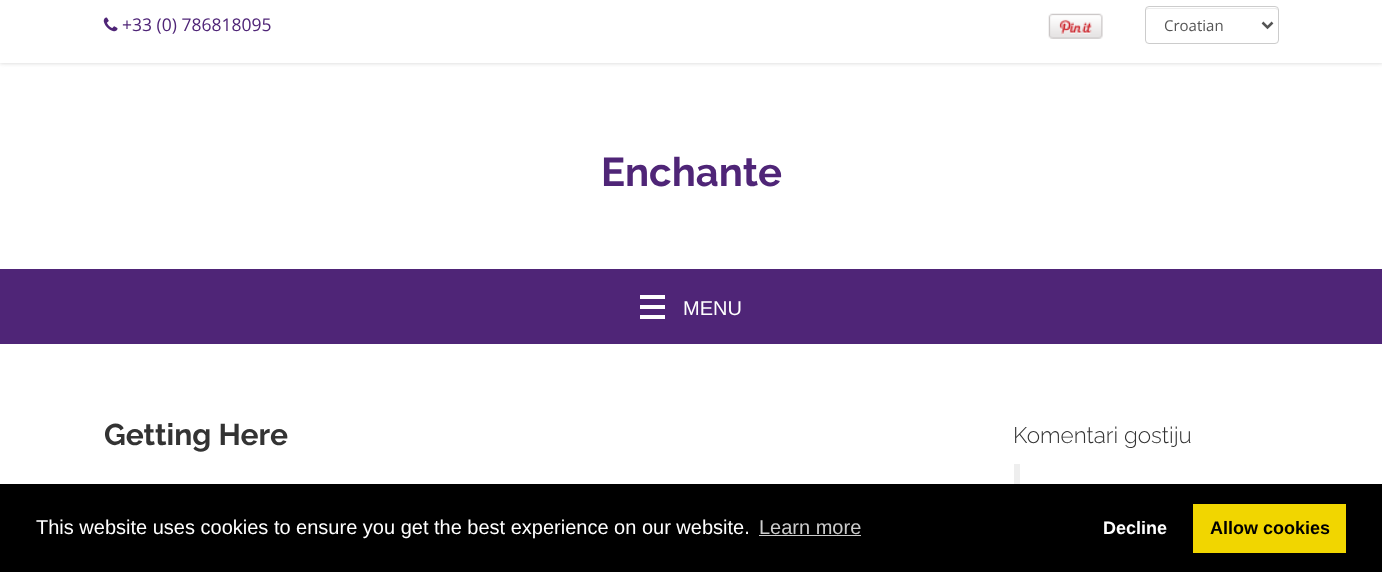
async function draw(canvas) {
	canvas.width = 1382;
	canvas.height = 572;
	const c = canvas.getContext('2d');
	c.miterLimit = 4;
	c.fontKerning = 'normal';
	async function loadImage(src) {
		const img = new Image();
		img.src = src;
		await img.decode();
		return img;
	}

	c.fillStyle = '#fff';
	c.fillRect(0, 0, 1382, 572);
	c.save();
	c.beginPath();
	c.moveTo(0, 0);
	c.lineTo(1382, 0);
	c.lineTo(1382, 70);
	c.lineTo(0, 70);
	c.closePath();
	c.moveTo(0, 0);
	c.lineTo(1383, 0);
	c.lineTo(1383, 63);
	c.lineTo(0, 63);
	c.closePath();
	c.clip('evenodd');
	c.fillStyle = '#d0d0d0';
	c.filter = 'blur(2px)';
	c.beginPath();
	c.rect(0, 0, 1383, 63);
	c.fill();
	c.filter = 'none';
	c.restore();
	c.drawImage(await loadImage('img1.png'), 103, 17, 15, 15);
	c.font = '17.5px Open Sans';
	c.fillStyle = '#4f2577';
	c.fillText('+33 (0) 786818095', 122, 31);
	c.drawImage(await loadImage('img2.png'), 1048, 13, 55, 26);
	c.fillStyle = '#ececec';
	c.beginPath();
	c.moveTo(1149, 9);
	c.lineTo(1275, 9);
	c.bezierCurveTo(1276, 9, 1278, 10, 1278, 11);
	c.bezierCurveTo(1278, 9, 1277, 8, 1276, 8);
	c.lineTo(1148, 8);
	c.bezierCurveTo(1147, 8, 1146, 9, 1146, 11);
	c.bezierCurveTo(1146, 10, 1147, 9, 1149, 9);
	c.closePath();
	c.fill();
	c.beginPath();
	c.roundRect(1145.5, 6.5, 133, 37, 3.5);
	c.strokeStyle = '#ccc';
	c.stroke();
	c.beginPath();
	c.moveTo(1262.5, 22.5);
	c.lineTo(1267.5, 27.5);
	c.lineTo(1272.5, 22.5);
	c.strokeStyle = '#555';
	c.lineWidth = 2.5;
	c.stroke();
	c.font = '15px Open Sans';
	c.fillStyle = '#555';
	c.fillText('Croatian', 1164, 31);
	c.font = 'bold 40px Raleway';
	c.fillStyle = '#4f2577';
	c.fillText('Enchante', 601, 186);
	for (const [x, y, w, h, color] of [
		[0, 269, 1382, 75, '#4f2577'],
		[640, 295, 25, 4, '#fff'],
		[640, 305, 25, 4, '#fff'],
		[640, 315, 25, 4, '#fff'],
	]) {
		c.fillStyle = color;
		c.fillRect(x, y, w, h);
	}
	c.font = '20px Liberation Sans';
	c.fillText('MENU', 683, 315);
	c.font = 'bold 30px Raleway';
	c.fillStyle = '#333';
	c.fillText('Getting Here', 104, 445);
	c.font = '300 22.5px Raleway';
	c.fillText('Komentari gostiju', 1013, 443);
	c.fillStyle = '#eee';
	c.fillRect(1014, 464, 6, 20);
	c.fillStyle = '#000';
	c.fillRect(0, 484, 1382, 88);
	c.font = '20px Liberation Sans';
	c.fillStyle = '#fff';
	c.fillText('This website uses cookies to ensure you get the best experience on our website.', 36, 534);
	c.fillStyle = '#ccc';
	c.fillText('Learn more', 759, 534);
	c.fillRect(759, 535, 102, 1);
	c.font = 'bold 18px Liberation Sans';
	c.fillStyle = '#fff';
	c.fillText('Decline', 1103, 534);
	c.fillStyle = '#f1d600';
	c.fillRect(1193, 504, 153, 49);
	c.fillStyle = '#000';
	c.fillText('Allow cookies', 1210, 534);
}

draw(document.querySelector('canvas'));
